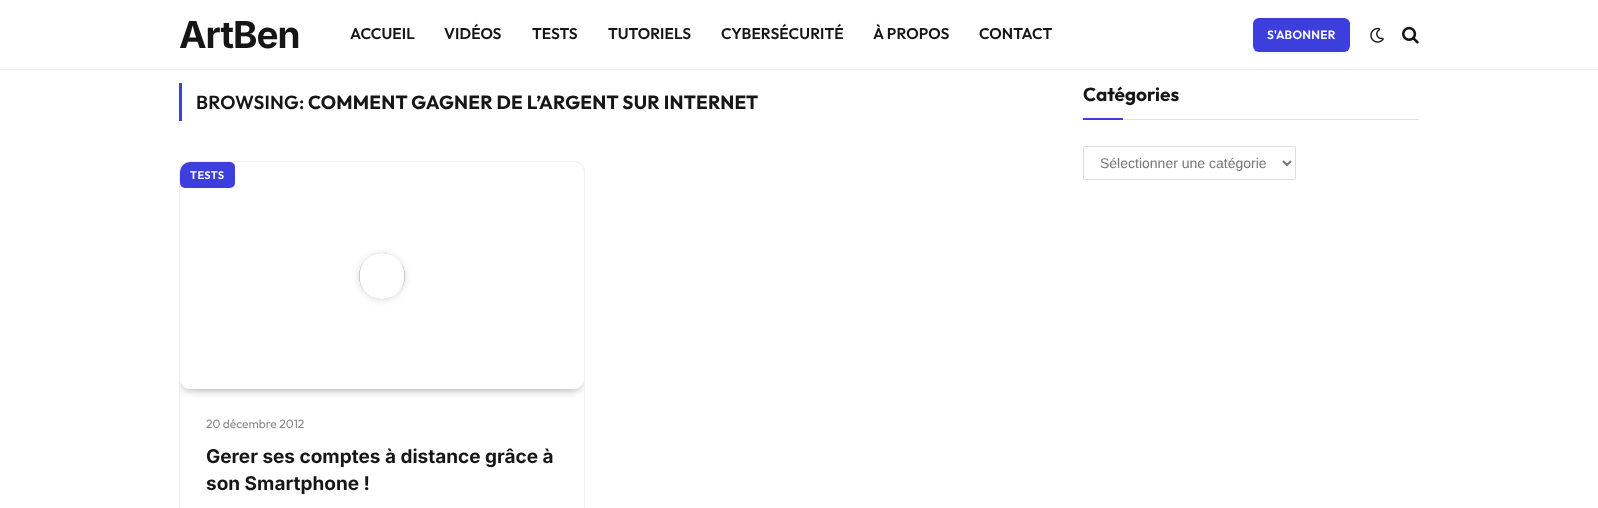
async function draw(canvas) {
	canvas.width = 1598;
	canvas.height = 508;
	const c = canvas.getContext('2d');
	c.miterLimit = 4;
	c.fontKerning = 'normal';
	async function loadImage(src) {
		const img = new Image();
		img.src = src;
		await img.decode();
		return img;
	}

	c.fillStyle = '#fff';
	c.fillRect(0, 0, 1598, 508);
	c.fillStyle = '#efefef';
	c.fillRect(0, 69, 1598, 1);
	c.letterSpacing = '-1px';
	c.font = 'bold 37px Inter';
	c.fillStyle = '#161616';
	c.fillText('ArtBen', 179, 48);
	c.letterSpacing = '0.1px';
	c.font = '600 15.5px Outfit';
	for (const [text, x, y] of [
		['ACCUEIL', 350, 39],
		['VIDÉOS', 444, 39],
		['TESTS', 532, 39],
		['TUTORIELS', 608, 39],
		['CYBERSÉCURITÉ', 721, 39],
		['À PROPOS', 873, 39],
		['CONTACT', 979, 39],
	]) {
		c.fillText(text, x, y);
	}
	c.fillStyle = '#00000029';
	c.filter = 'blur(3.5px)';
	c.beginPath();
	c.roundRect(1257, 24, 89, 26, 2);
	c.fill();
	c.filter = 'none';
	c.fillStyle = '#3c3fde';
	c.beginPath();
	c.roundRect(1253, 18, 97, 34, 6);
	c.fill();
	c.letterSpacing = '0.25px';
	c.font = '600 12px Outfit';
	c.fillStyle = '#fff';
	c.fillText('S\'ABONNER', 1267, 39);
	c.drawImage(await loadImage('img1.png'), 1370, 27, 14, 16);
	c.drawImage(await loadImage('img2.png'), 1402, 26, 17, 18);
	c.fillStyle = '#3c3fde';
	c.fillRect(179, 83, 3, 38);
	c.letterSpacing = '0.2px';
	c.font = '600 19px Outfit';
	c.fillStyle = '#161616';
	c.fillText('BROWSING:', 196, 109);
	c.font = 'bold 19px Outfit';
	c.fillText('COMMENT GAGNER DE L’ARGENT SUR INTERNET', 308, 109);
	c.beginPath();
	c.roundRect(179.5, 161.5, 405, 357, 9.5);
	c.strokeStyle = '#efefef';
	c.stroke();
	c.save();
	c.beginPath();
	c.roundRect(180, 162, 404, 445, 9);
	c.clip();
	c.beginPath();
	c.moveTo(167, 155);
	c.lineTo(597, 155);
	c.lineTo(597, 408);
	c.lineTo(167, 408);
	c.closePath();
	c.moveTo(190, 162);
	c.lineTo(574, 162);
	c.bezierCurveTo(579.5, 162, 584, 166.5, 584, 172);
	c.lineTo(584, 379);
	c.bezierCurveTo(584, 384.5, 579.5, 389, 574, 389);
	c.lineTo(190, 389);
	c.bezierCurveTo(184.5, 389, 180, 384.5, 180, 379);
	c.lineTo(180, 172);
	c.bezierCurveTo(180, 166.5, 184.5, 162, 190, 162);
	c.closePath();
	c.clip('evenodd');
	c.fillStyle = '#070a1933';
	c.filter = 'blur(6px)';
	c.beginPath();
	c.roundRect(186, 174, 392, 215, 4);
	c.fill();
	c.filter = 'none';
	c.restore();
	c.save();
	c.beginPath();
	c.roundRect(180, 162, 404, 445, 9);
	c.clip();
	c.beginPath();
	c.moveTo(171, 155);
	c.lineTo(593, 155);
	c.lineTo(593, 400);
	c.lineTo(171, 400);
	c.closePath();
	c.moveTo(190, 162);
	c.lineTo(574, 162);
	c.bezierCurveTo(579.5, 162, 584, 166.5, 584, 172);
	c.lineTo(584, 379);
	c.bezierCurveTo(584, 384.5, 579.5, 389, 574, 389);
	c.lineTo(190, 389);
	c.bezierCurveTo(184.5, 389, 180, 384.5, 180, 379);
	c.lineTo(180, 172);
	c.bezierCurveTo(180, 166.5, 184.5, 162, 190, 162);
	c.closePath();
	c.clip('evenodd');
	c.fillStyle = '#070a1933';
	c.filter = 'blur(3px)';
	c.beginPath();
	c.roundRect(181, 165, 402, 225, 9);
	c.fill();
	c.filter = 'none';
	c.restore();
	c.fillStyle = '#3c3fde';
	c.beginPath();
	c.roundRect(180, 162, 55, 26, [10, 5, 5, 5]);
	c.fill();
	c.letterSpacing = '0.5px';
	c.font = '600 11px Outfit';
	c.fillStyle = '#fff';
	c.fillText('TESTS', 190, 179);
	c.fillStyle = '#00000026';
	c.filter = 'blur(3.5px)';
	c.beginPath();
	c.roundRect(359, 254, 46, 46, 23);
	c.fill();
	c.filter = 'none';
	c.fillStyle = '#00000059';
	c.beginPath();
	c.arc(382, 276, 23, 0, 2 * Math.PI);
	c.fill();
	c.fillStyle = '#fff';
	c.beginPath();
	c.moveTo(382, 253);
	c.bezierCurveTo(412, 253, 412, 299, 382, 299);
	c.bezierCurveTo(352, 299, 352, 253, 382, 253);
	c.closePath();
	c.fill();
	c.letterSpacing = '0px';
	c.font = '12px Outfit';
	c.fillStyle = '#8a8a8a';
	c.fillText('20 décembre 2012', 206, 428);
	c.font = 'bold 19px Inter';
	c.fillStyle = '#161616';
	c.fillText('Gerer ses comptes à distance grâce à', 206, 463);
	c.fillText('son Smartphone !', 206, 490);
	c.fillStyle = '#e2e2e2';
	c.fillRect(1123, 119, 296, 1);
	c.font = 'bold 19px Outfit';
	c.fillStyle = '#161616';
	c.fillText('Catégories', 1083, 101);
	c.fillStyle = '#3c3fde';
	c.fillRect(1083, 118, 40, 2);
	c.beginPath();
	c.roundRect(1083.5, 146.5, 212, 33, 1.5);
	c.strokeStyle = '#ddd';
	c.stroke();
	c.beginPath();
	c.moveTo(1283, 161);
	c.lineTo(1287, 165);
	c.lineTo(1291, 161);
	c.strokeStyle = '#777';
	c.lineWidth = 2;
	c.stroke();
	c.font = '14px Liberation Sans';
	c.fillStyle = '#777';
	c.fillText('Sélectionner une catégorie', 1100, 168);
}

draw(document.querySelector('canvas'));
